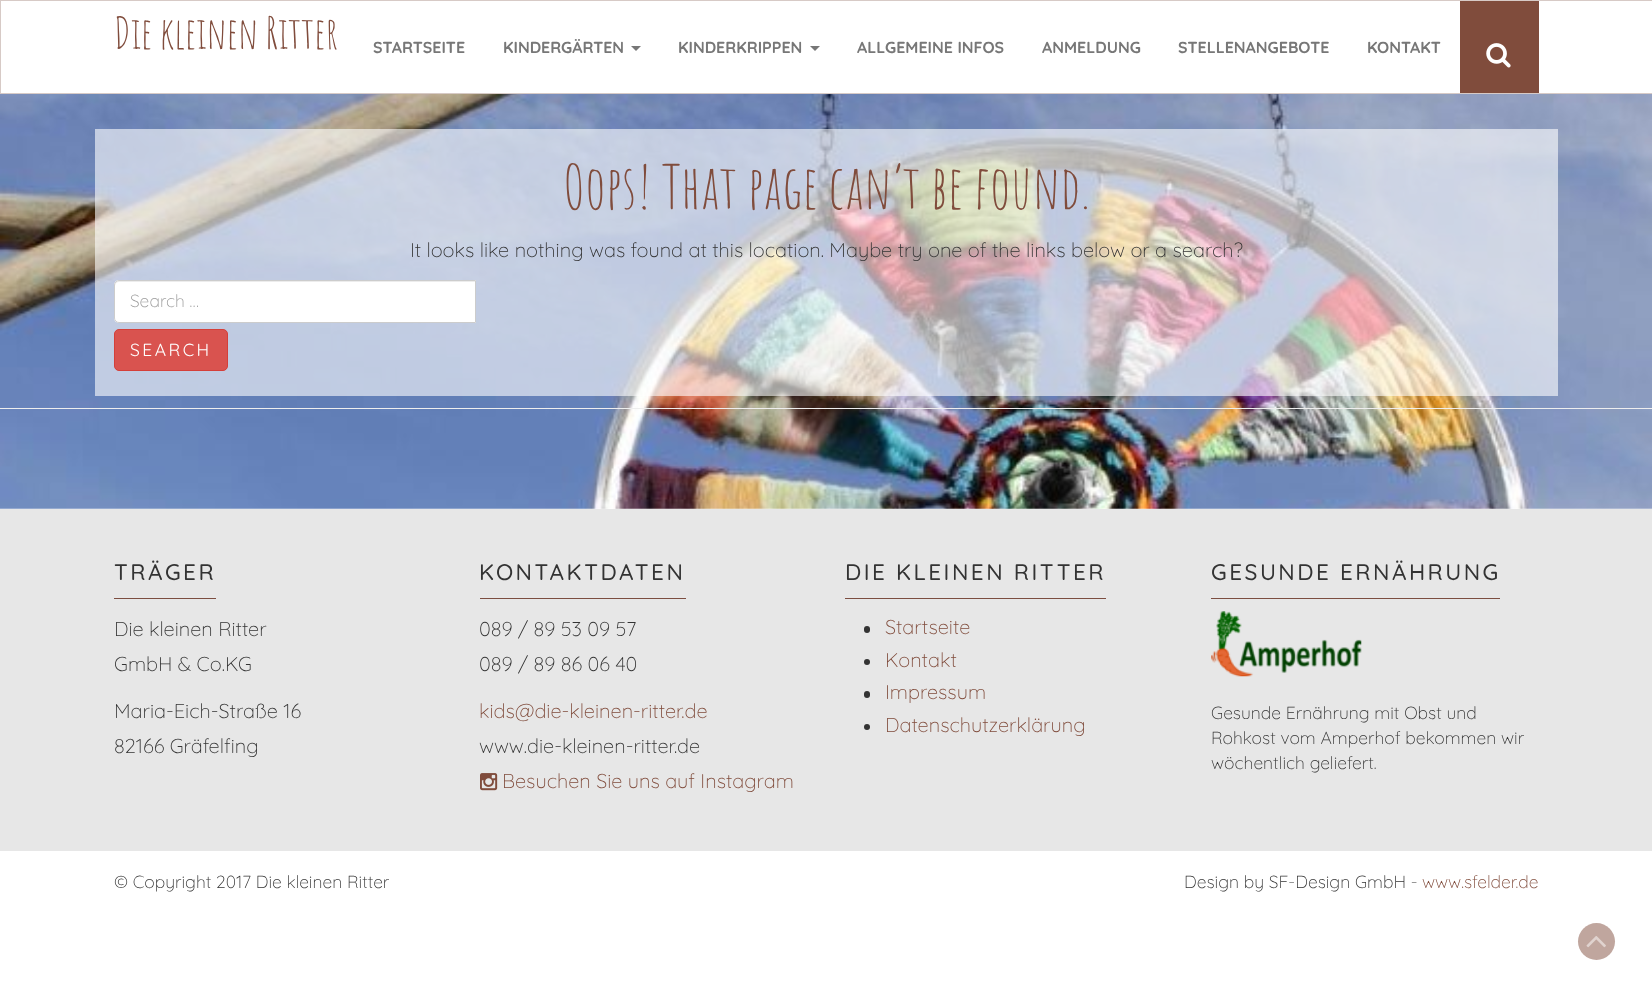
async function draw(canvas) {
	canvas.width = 1652;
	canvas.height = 997;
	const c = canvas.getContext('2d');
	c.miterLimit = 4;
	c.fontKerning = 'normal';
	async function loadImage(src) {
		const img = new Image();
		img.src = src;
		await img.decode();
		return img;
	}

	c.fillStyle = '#fff';
	c.fillRect(0, 0, 1652, 997);
	c.strokeStyle = '#d7cac6';
	c.strokeRect(0.5, 0.5, 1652, 93);
	c.font = '43.75px Amatic SC';
	c.fillStyle = '#804c3c';
	c.fillText('Die kleinen Ritter', 114, 49);
	c.font = 'bold 16px Quicksand';
	c.fillStyle = '#777';
	c.fillText('STARTSEITE', 373, 53);
	c.fillText('KINDERGÄRTEN', 503, 53);
	c.beginPath();
	c.moveTo(631, 46);
	c.lineTo(641, 46);
	c.lineTo(636, 51);
	c.closePath();
	c.fill();
	c.fillText('KINDERKRIPPEN', 678, 53);
	c.beginPath();
	c.moveTo(810, 46);
	c.lineTo(820, 46);
	c.lineTo(815, 51);
	c.closePath();
	c.fill();
	for (const [text, x, y] of [
		['ALLGEMEINE INFOS', 857, 53],
		['ANMELDUNG', 1042, 53],
		['STELLENANGEBOTE', 1178, 53],
		['KONTAKT', 1367, 53],
	]) {
		c.fillText(text, x, y);
	}
	c.fillStyle = '#804c3c';
	c.fillRect(1460, 1, 79, 92);
	c.drawImage(await loadImage('img1.png'), 1486, 43, 25, 25);
	c.drawImage(await loadImage('img2.png'), 0, 94, 1652, 415);
	c.fillStyle = '#eee';
	c.fillRect(0, 408, 1652, 1);
	c.fillStyle = '#ffffff99';
	c.fillRect(95, 129, 1463, 267);
	c.font = '60px Amatic SC';
	c.fillStyle = '#804c3c';
	c.fillText('Oops! That page can’t be found.', 563, 209);
	c.font = '300 20px Quicksand';
	c.fillStyle = '#333';
	c.fillText('It looks like nothing was found at this location. Maybe try one of the links below or a search?', 410, 257);
	c.fillStyle = '#fff';
	c.beginPath();
	c.roundRect(114, 280, 362, 43, [5, 0, 0, 5]);
	c.fill();
	c.fillStyle = '#ececec';
	c.beginPath();
	c.moveTo(119, 282);
	c.lineTo(475, 282);
	c.lineTo(475, 281);
	c.lineTo(119, 281);
	c.bezierCurveTo(116, 281, 115, 283, 115, 286);
	c.bezierCurveTo(115, 284, 117, 282, 119, 282);
	c.closePath();
	c.fill();
	c.beginPath();
	c.roundRect(114.5, 280.5, 361, 42, [4.5, 0, 0, 4.5]);
	c.strokeStyle = '#ccc';
	c.stroke();
	c.font = '300 17.5px Quicksand';
	c.fillStyle = '#999';
	c.fillText('Search …', 130, 307);
	c.fillStyle = '#d9534f';
	c.beginPath();
	c.roundRect(114.5, 329.5, 113, 41, 4.5);
	c.fill();
	c.strokeStyle = '#d43f3a';
	c.stroke();
	c.letterSpacing = '2.5px';
	c.font = '17.5px Quicksand';
	c.fillStyle = '#fff';
	c.fillText('SEARCH', 130, 356);
	c.fillStyle = '#e7e7e7';
	c.fillRect(0, 509, 1652, 342);
	c.fillStyle = '#7c4e41';
	c.fillRect(114, 598, 102, 1);
	c.font = '500 22.5px Quicksand';
	c.fillStyle = '#333';
	c.fillText('TRÄGER', 114, 580);
	c.letterSpacing = '0px';
	c.font = '300 20px Quicksand';
	for (const [text, x, y] of [
		['Die kleinen Ritter', 114, 636],
		['GmbH & Co.KG', 114, 671],
		['Maria-Eich-Straße 16', 114, 718],
		['82166 Gräfelfing', 114, 753],
	]) {
		c.fillText(text, x, y);
	}
	c.fillStyle = '#7c4e41';
	c.fillRect(480, 598, 206, 1);
	c.letterSpacing = '2.5px';
	c.font = '500 22.5px Quicksand';
	c.fillStyle = '#333';
	c.fillText('KONTAKTDATEN', 479, 580);
	c.letterSpacing = '0px';
	c.font = '300 20px Quicksand';
	c.fillText('089 / 89 53 09 57', 479, 636);
	c.fillText('089 / 89 86 06 40', 479, 671);
	c.fillStyle = '#804c3c';
	c.fillText('kids@die-kleinen-ritter.de', 479, 718);
	c.fillStyle = '#333';
	c.fillText('www.die-kleinen-ritter.de', 479, 753);
	c.drawImage(await loadImage('img3.png'), 480, 773, 18, 18);
	c.fillStyle = '#804c3c';
	c.fillText('Besuchen Sie uns auf Instagram', 502, 788);
	c.fillStyle = '#7c4e41';
	c.fillRect(845, 598, 261, 1);
	c.letterSpacing = '2.5px';
	c.font = '500 22.5px Quicksand';
	c.fillStyle = '#333';
	c.fillText('DIE KLEINEN RITTER', 845, 580);
	c.beginPath();
	c.roundRect(864, 626, 6, 7, 3);
	c.fill();
	c.letterSpacing = '0px';
	c.font = '300 20px Quicksand';
	c.fillStyle = '#804c3c';
	c.fillText('Startseite', 885, 634);
	c.fillStyle = '#333';
	c.beginPath();
	c.arc(867, 662, 3, 0, 2 * Math.PI);
	c.fill();
	c.fillStyle = '#804c3c';
	c.fillText('Kontakt', 885, 667);
	c.fillStyle = '#333';
	c.beginPath();
	c.roundRect(864, 691, 6, 7, 3);
	c.fill();
	c.fillStyle = '#804c3c';
	c.fillText('Impressum', 885, 699);
	c.fillStyle = '#333';
	c.beginPath();
	c.arc(867, 727, 3, 0, 2 * Math.PI);
	c.fill();
	c.fillStyle = '#804c3c';
	c.fillText('Datenschutzerklärung', 885, 732);
	c.fillStyle = '#7c4e41';
	c.fillRect(1211, 598, 289, 1);
	c.letterSpacing = '2.5px';
	c.font = '500 22.5px Quicksand';
	c.fillStyle = '#333';
	c.fillText('GESUNDE ERNÄHRUNG', 1211, 580);
	c.drawImage(await loadImage('img4.png'), 1211, 611, 151, 66);
	c.letterSpacing = '0px';
	c.font = '300 17.5px Quicksand';
	for (const [text, x, y] of [
		['Gesunde Ernährung mit Obst und', 1211, 719],
		['Rohkost vom Amperhof bekommen wir', 1211, 744],
		['wöchentlich geliefert.', 1211, 769],
		['© Copyright 2017 Die kleinen Ritter', 114, 888],
		['Design by SF-Design GmbH -', 1184, 888],
	]) {
		c.fillText(text, x, y);
	}
	c.fillStyle = '#804c3c';
	c.fillText('www.sfelder.de', 1422, 888);
	c.fillStyle = '#c0a69e';
	c.beginPath();
	c.arc(1596.5, 941.5, 18.5, 0, 2 * Math.PI);
	c.fill();
	c.drawImage(await loadImage('img5.png'), 1586, 936, 20, 12);
}

draw(document.querySelector('canvas'));
